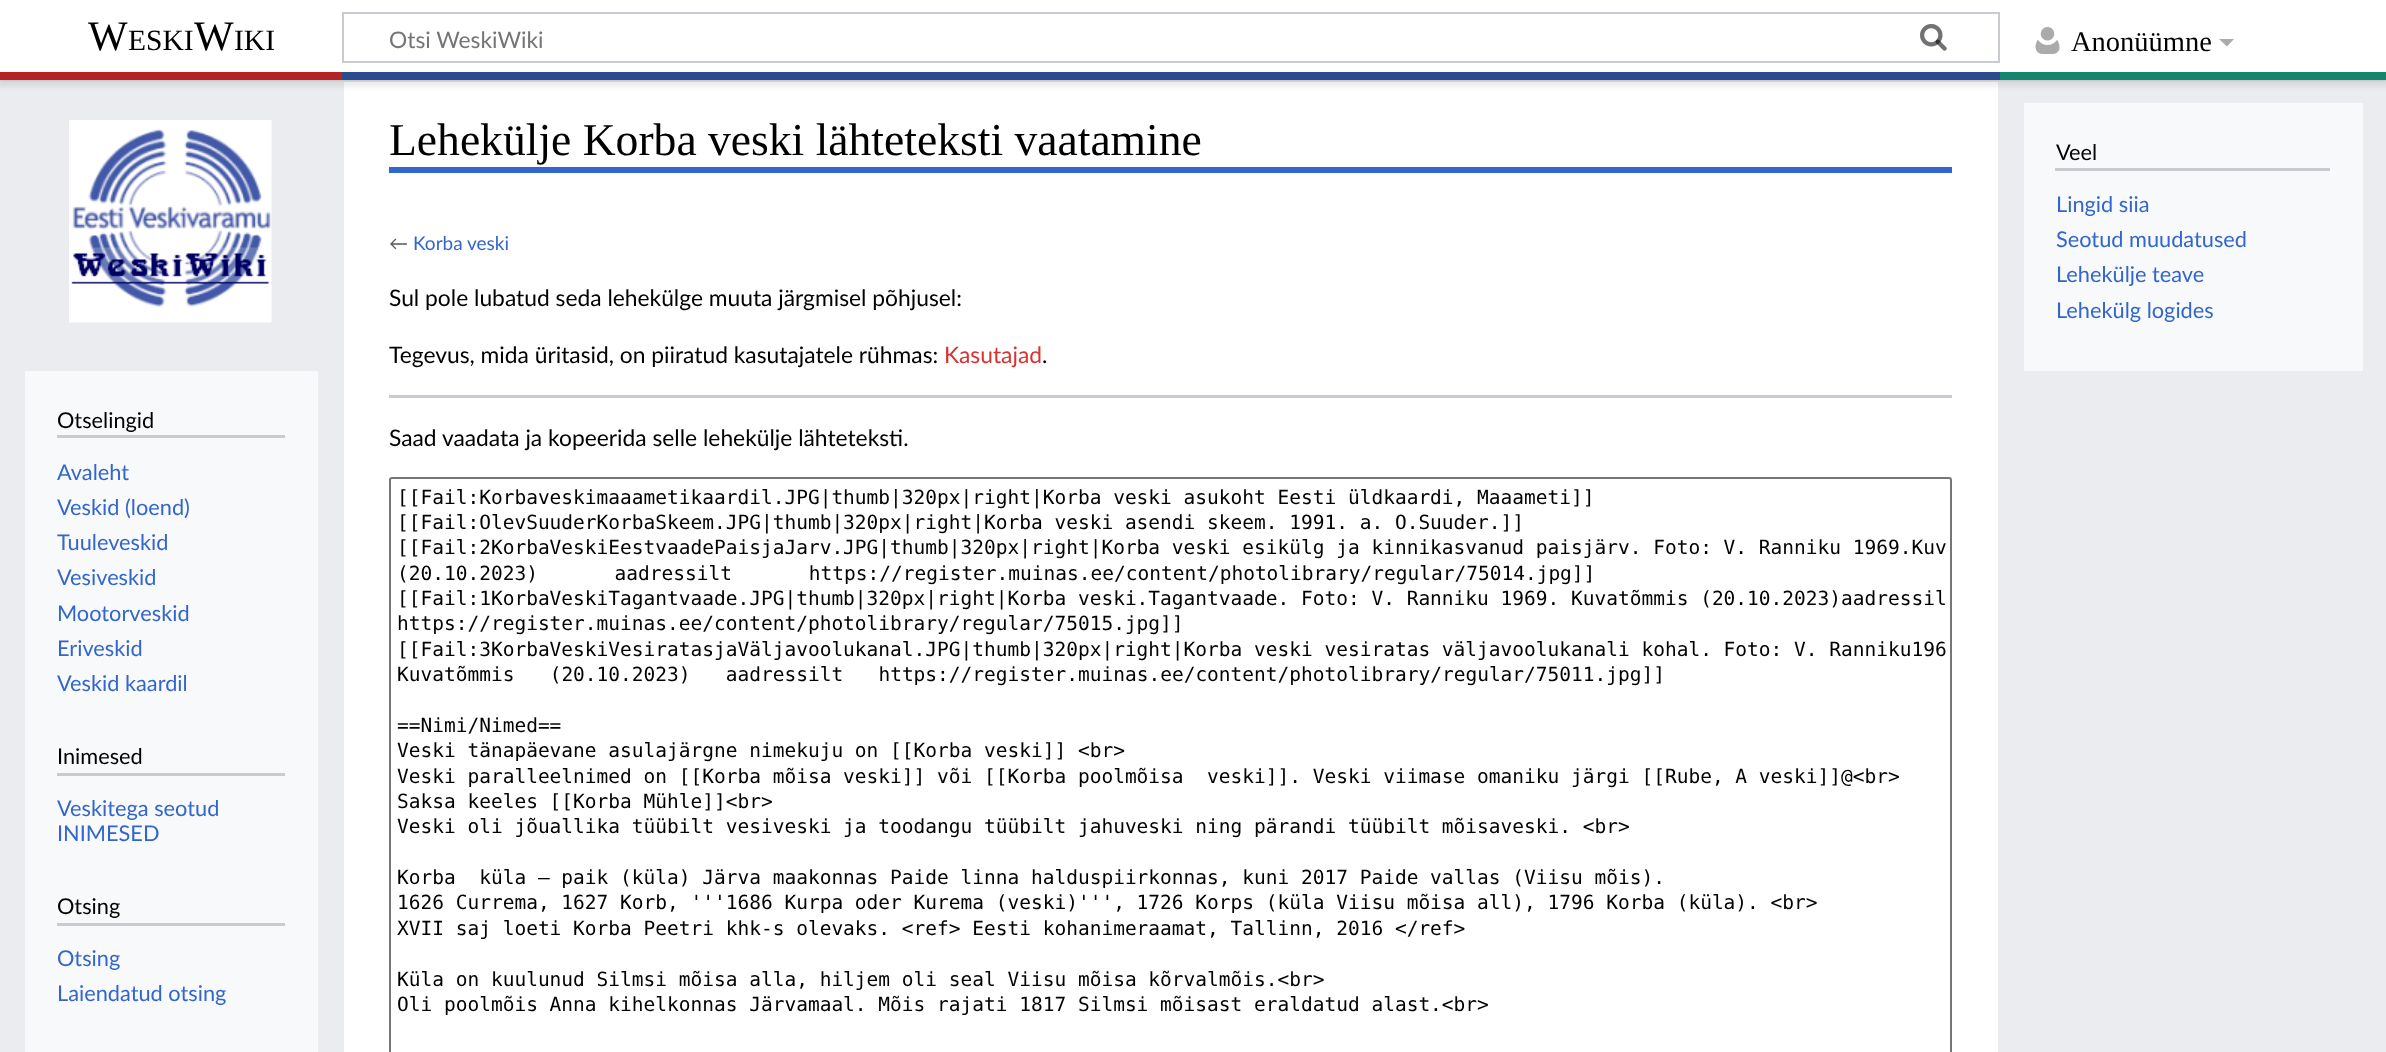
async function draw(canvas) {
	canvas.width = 2386;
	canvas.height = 1052;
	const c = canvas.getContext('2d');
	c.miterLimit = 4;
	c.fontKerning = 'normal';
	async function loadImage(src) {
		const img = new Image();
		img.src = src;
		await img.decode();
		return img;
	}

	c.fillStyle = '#eaecf0';
	c.fillRect(0, 0, 2386, 1052);
	c.fillStyle = '#fff';
	c.fillRect(344, 82, 1654, 970);
	c.fillStyle = '#00000033';
	c.filter = 'blur(1.5px)';
	c.beginPath();
	c.rect(0, 72, 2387, 8);
	c.fill();
	c.filter = 'none';
	c.fillStyle = '#00000012';
	c.filter = 'blur(2px)';
	c.beginPath();
	c.rect(-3, 74, 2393, 13);
	c.fill();
	c.filter = 'none';
	c.fillStyle = '#fff';
	c.fillRect(0, 0, 2386, 72);
	c.font = '42px Liberation Serif';
	c.fillStyle = '#000';
	c.fillText('W', 88, 50);
	c.font = '29.5px Liberation Serif';
	c.fillText('ESKI', 128, 50);
	c.font = '42px Liberation Serif';
	c.fillText('W', 194, 50);
	c.font = '29.5px Liberation Serif';
	c.fillText('IKI', 234, 50);
	c.strokeStyle = '#c8ccd1';
	c.lineWidth = 2;
	c.strokeRect(343, 13, 1656, 49);
	c.drawImage(await loadImage('img1.png'), 1920, 24, 27, 27);
	c.font = '22.8px Lato';
	c.fillStyle = '#757575';
	c.fillText('Otsi WeskiWiki', 389, 48);
	c.drawImage(await loadImage('img2.png'), 1920, 24, 27, 27);
	c.drawImage(await loadImage('img3.png'), 2035, 27, 25, 27);
	c.font = '28.5px Liberation Serif';
	c.fillStyle = '#000';
	c.fillText('Anonüümne', 2071, 51);
	c.fillStyle = '#ababab';
	c.beginPath();
	c.moveTo(2234, 39);
	c.lineTo(2227, 46.5);
	c.lineTo(2219, 39);
	c.closePath();
	c.fill();
	for (const [x, y, w, h, color] of [
		[0, 72, 342, 8, '#b32424'],
		[342, 72, 1658, 8, '#2a4b8d'],
		[2000, 72, 386, 8, '#14866d'],
		[389, 167, 1563, 6, '#36c'],
	]) {
		c.fillStyle = color;
		c.fillRect(x, y, w, h);
	}
	c.font = '45.6px Liberation Serif';
	c.fillStyle = '#000';
	c.fillText('Lehekülje Korba veski lähteteksti vaatamine', 389, 155);
	c.font = '19px Lato';
	c.fillStyle = '#54595d';
	c.fillText('←', 389, 250);
	c.fillStyle = '#36c';
	c.fillText('Korba veski', 413, 250);
	c.font = '22.8px Lato';
	c.fillStyle = '#000';
	c.fillText('Sul pole lubatud seda lehekülge muuta järgmisel põhjusel:', 389, 306);
	c.fillText('Tegevus, mida üritasid, on piiratud kasutajatele rühmas:', 389, 363);
	c.fillStyle = '#d73333';
	c.fillText('Kasutajad', 944, 363);
	c.fillStyle = '#000';
	c.fillText('.', 1042, 363);
	c.fillStyle = '#c8ccd1';
	c.fillRect(389, 395, 1563, 3);
	c.fillStyle = '#000';
	c.fillText('Saad vaadata ja kopeerida selle lehekülje lähteteksti.', 389, 446);
	c.beginPath();
	c.roundRect(390, 478, 1561, 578, 2);
	c.strokeStyle = '#767676';
	c.stroke();
	c.font = '19.5px DejaVu Sans Mono';
	for (const [text, x, y] of [
		['[[Fail:Korbaveskimaaametikaardil.JPG|thumb|320px|right|Korba veski asukoht Eesti üldkaardi, Maaameti]]', 397, 504],
		['[[Fail:OlevSuuderKorbaSkeem.JPG|thumb|320px|right|Korba veski asendi skeem. 1991. a. O.Suuder.]]', 397, 529],
		['[[Fail:2KorbaVeskiEestvaadePaisjaJarv.JPG|thumb|320px|right|Korba veski esikülg ja kinnikasvanud paisjärv. Foto: V. Ranniku 1969.Kuv', 397, 554],
	]) {
		c.fillText(text, x, y);
	}
	c.wordSpacing = '65px';
	c.fillText('(20.10.2023) aadressilt https://register.muinas.ee/content/photolibrary/regular/75014.jpg]]', 397, 580);
	c.wordSpacing = '0px';
	for (const [text, x, y] of [
		['[[Fail:1KorbaVeskiTagantvaade.JPG|thumb|320px|right|Korba veski.Tagantvaade. Foto: V. Ranniku 1969. Kuvatõmmis (20.10.2023)aadressil', 397, 605],
		['https://register.muinas.ee/content/photolibrary/regular/75015.jpg]]', 397, 630],
		['[[Fail:3KorbaVeskiVesiratasjaVäljavoolukanal.JPG|thumb|320px|right|Korba veski vesiratas väljavoolukanali kohal. Foto: V. Ranniku196', 397, 656],
	]) {
		c.fillText(text, x, y);
	}
	c.wordSpacing = '23.5px';
	c.fillText('Kuvatõmmis (20.10.2023) aadressilt https://register.muinas.ee/content/photolibrary/regular/75011.jpg]]', 397, 681);
	c.wordSpacing = '0px';
	for (const [text, x, y] of [
		['==Nimi/Nimed==', 397, 732],
		['Veski tänapäevane asulajärgne nimekuju on [[Korba veski]] <br>', 397, 757],
		['Veski paralleelnimed on [[Korba mõisa veski]] või [[Korba poolmõisa  veski]]. Veski viimase omaniku järgi [[Rube, A veski]]@<br>', 397, 783],
		['Saksa keeles [[Korba Mühle]]<br>', 397, 808],
		['Veski oli jõuallika tüübilt vesiveski ja toodangu tüübilt jahuveski ning pärandi tüübilt mõisaveski. <br>', 397, 833],
		['Korba  küla – paik (küla) Järva maakonnas Paide linna halduspiirkonnas, kuni 2017 Paide vallas (Viisu mõis).', 397, 884],
		['1626 Currema, 1627 Korb, \'\'\'1686 Kurpa oder Kurema (veski)\'\'\', 1726 Korps (küla Viisu mõisa all), 1796 Korba (küla). <br>', 397, 909],
		['XVII saj loeti Korba Peetri khk-s olevaks. <ref> Eesti kohanimeraamat, Tallinn, 2016 <\/ref>', 397, 935],
		['Küla on kuulunud Silmsi mõisa alla, hiljem oli seal Viisu mõisa kõrvalmõis.<br>', 397, 986],
		['Oli poolmõis Anna kihelkonnas Järvamaal. Mõis rajati 1817 Silmsi mõisast eraldatud alast.<br>', 397, 1011],
	]) {
		c.fillText(text, x, y);
	}
	c.fillStyle = '#f8f9fa';
	c.fillRect(2024, 103, 339, 268);
	c.fillStyle = '#c8ccd1';
	c.fillRect(2055, 168, 275, 3);
	c.font = '21.75px Lato';
	c.fillStyle = '#000';
	c.fillText('Veel', 2056, 160);
	c.fillStyle = '#36c';
	for (const [text, x, y] of [
		['Lingid siia', 2056, 212],
		['Seotud muudatused', 2056, 247],
		['Lehekülje teave', 2056, 282],
		['Lehekülg logides', 2056, 318],
	]) {
		c.fillText(text, x, y);
	}
	c.drawImage(await loadImage('img4.png'), 69, 120, 203, 203);
	c.fillStyle = '#f8f9fa';
	c.fillRect(25, 371, 293, 681);
	c.fillStyle = '#c8ccd1';
	c.fillRect(57, 435, 228, 3);
	c.fillStyle = '#000';
	c.fillText('Otselingid', 57, 428);
	c.fillStyle = '#36c';
	for (const [text, x, y] of [
		['Avaleht', 57, 480],
		['Veskid (loend)', 57, 515],
		['Tuuleveskid', 57, 550],
		['Vesiveskid', 57, 585],
		['Mootorveskid', 57, 621],
		['Eriveskid', 57, 656],
		['Veskid kaardil', 57, 691],
	]) {
		c.fillText(text, x, y);
	}
	c.fillStyle = '#c8ccd1';
	c.fillRect(57, 773, 228, 3);
	c.fillStyle = '#000';
	c.fillText('Inimesed', 57, 764);
	c.fillStyle = '#36c';
	c.fillText('Veskitega seotud', 57, 816);
	c.fillText('INIMESED', 57, 841);
	c.fillStyle = '#c8ccd1';
	c.fillRect(57, 923, 228, 3);
	c.fillStyle = '#000';
	c.fillText('Otsing', 57, 914);
	c.fillStyle = '#36c';
	c.fillText('Otsing', 57, 966);
	c.fillText('Laiendatud otsing', 57, 1001);
}

draw(document.querySelector('canvas'));
